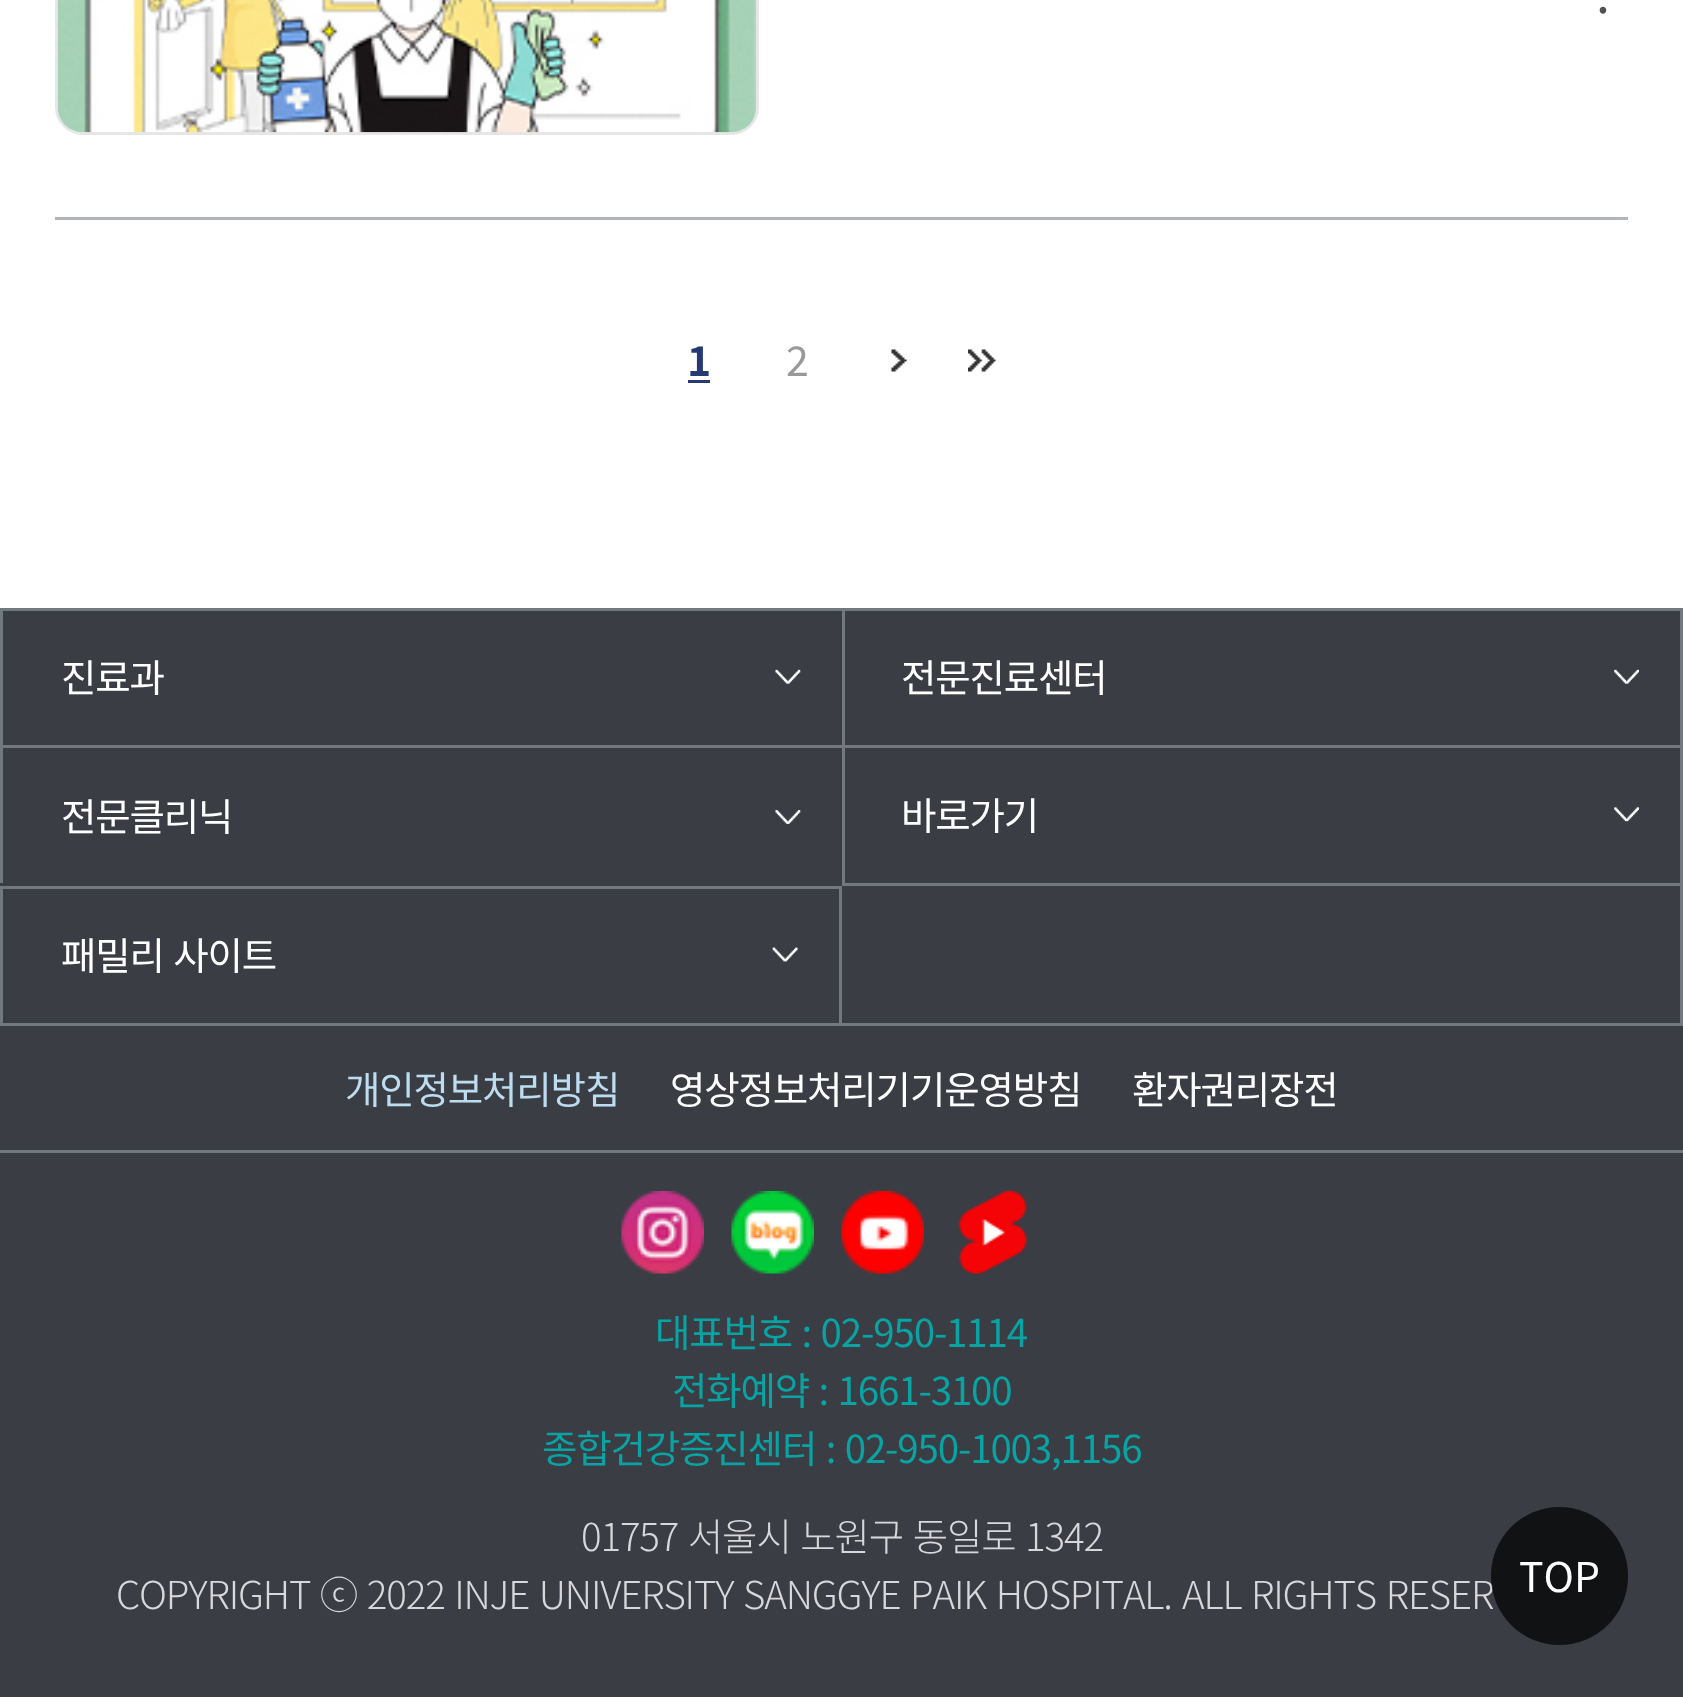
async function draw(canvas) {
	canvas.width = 1683;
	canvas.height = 1697;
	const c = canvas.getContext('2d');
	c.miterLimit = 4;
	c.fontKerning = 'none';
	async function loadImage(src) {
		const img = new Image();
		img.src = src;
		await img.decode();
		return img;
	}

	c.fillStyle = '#fff';
	c.fillRect(0, 0, 1683, 1697);
	c.fillStyle = '#b1b5b9';
	c.fillRect(55, 217, 1573, 3);
	c.beginPath();
	c.roundRect(56.5, -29.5, 701, 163, 26.5);
	c.strokeStyle = '#e6e6e6';
	c.lineWidth = 3;
	c.stroke();
	c.drawImage(await loadImage('img1.png'), 57, 0, 699, 133);
	c.letterSpacing = '-3px';
	c.font = '50px Noto Sans KR';
	c.fillStyle = '#515151';
	c.fillText('.', 1596, 13);
	c.letterSpacing = '-1.15px';
	c.font = 'bold 41px Noto Sans KR';
	c.fillStyle = '#253a73';
	c.fillText('1', 687, 376);
	c.fillRect(688, 380, 22, 3);
	c.font = '41px Noto Sans KR';
	c.fillStyle = '#999';
	c.fillText('2', 786, 376);
	c.drawImage(await loadImage('img2.png'), 890, 349, 18, 23);
	c.drawImage(await loadImage('img3.png'), 968, 349, 28, 23);
	for (const [x, y, w, h, color] of [
		[0, 611, 1683, 1086, '#3a3d44'],
		[1680, 608, 3, 415, '#72787f'],
		[0, 608, 1680, 3, '#72787f'],
		[0, 608, 3, 137, '#72787f'],
	]) {
		c.fillStyle = color;
		c.fillRect(x, y, w, h);
	}
	c.font = '38.5px Noto Sans KR';
	c.fillStyle = '#fff';
	c.fillText('진료과', 61, 692);
	c.drawImage(await loadImage('img4.png'), 775, 669, 26, 15);
	c.fillStyle = '#72787f';
	c.fillRect(842, 608, 3, 137);
	c.fillStyle = '#fff';
	c.fillText('전문진료센터', 901, 692);
	c.drawImage(await loadImage('img5.png'), 1614, 669, 25, 15);
	c.fillStyle = '#72787f';
	c.fillRect(0, 745, 1680, 3);
	c.fillRect(0, 745, 3, 138);
	c.fillStyle = '#fff';
	c.fillText('전문클리닉', 61, 831);
	c.drawImage(await loadImage('img6.png'), 775, 810, 26, 14);
	c.fillStyle = '#72787f';
	c.fillRect(842, 883, 838, 3);
	c.fillRect(842, 745, 3, 141);
	c.fillStyle = '#fff';
	c.fillText('바로가기', 901, 830);
	c.drawImage(await loadImage('img7.png'), 1614, 807, 25, 15);
	for (const [x, y, w, h, color] of [
		[0, 886, 842, 3, '#72787f'],
		[839, 886, 3, 137, '#72787f'],
		[0, 886, 3, 137, '#72787f'],
	]) {
		c.fillStyle = color;
		c.fillRect(x, y, w, h);
	}
	c.wordSpacing = '2px';
	c.fillStyle = '#fff';
	c.fillText('패밀리 사이트', 61, 970);
	c.drawImage(await loadImage('img8.png'), 772, 947, 26, 15);
	c.fillStyle = '#72787f';
	c.fillRect(0, 1023, 1683, 3);
	c.fillRect(0, 1150, 1683, 3);
	c.wordSpacing = '0px';
	c.fillStyle = '#bcdcf0';
	c.fillText('개인정보처리방침', 345, 1104);
	c.fillStyle = '#fff';
	c.fillText('영상정보처리기기운영방침', 670, 1104);
	c.fillText('환자권리장전', 1132, 1104);
	c.drawImage(await loadImage('img9.png'), 621, 1191, 83, 83);
	c.drawImage(await loadImage('img10.png'), 731, 1191, 83, 83);
	c.drawImage(await loadImage('img11.png'), 841, 1191, 83, 83);
	c.drawImage(await loadImage('img12.png'), 958, 1191, 69, 83);
	c.wordSpacing = '2px';
	c.fillStyle = '#08a3a2';
	for (const [text, x, y] of [
		['대표번호 : 02-950-1114', 655, 1347],
		['전화예약 : 1661-3100', 672, 1405],
		['종합건강증진센터 : 02-950-1003,1156', 542, 1463],
	]) {
		c.fillText(text, x, y);
	}
	c.wordSpacing = '2.25px';
	c.font = '300 38.5px Noto Sans KR';
	c.fillStyle = '#d8d8da';
	for (const [text, x, y] of [
		['01757 서울시 노원구 동일로 1342', 581, 1551],
		['COPYRIGHT ⓒ 2022 INJE UNIVERSITY SANGGYE PAIK HOSPITAL.', 116, 1609],
		['ALL RIGHTS RESER', 1182, 1609],
	]) {
		c.fillText(text, x, y);
	}
	c.fillStyle = '#000000b3';
	c.beginPath();
	c.roundRect(1491, 1507, 137, 138, 68.5);
	c.fill();
	c.letterSpacing = '0px';
	c.wordSpacing = '0px';
	c.font = '41px Noto Sans KR';
	c.fillStyle = '#fff';
	c.fillText('TOP', 1519, 1592);
}

draw(document.querySelector('canvas'));
